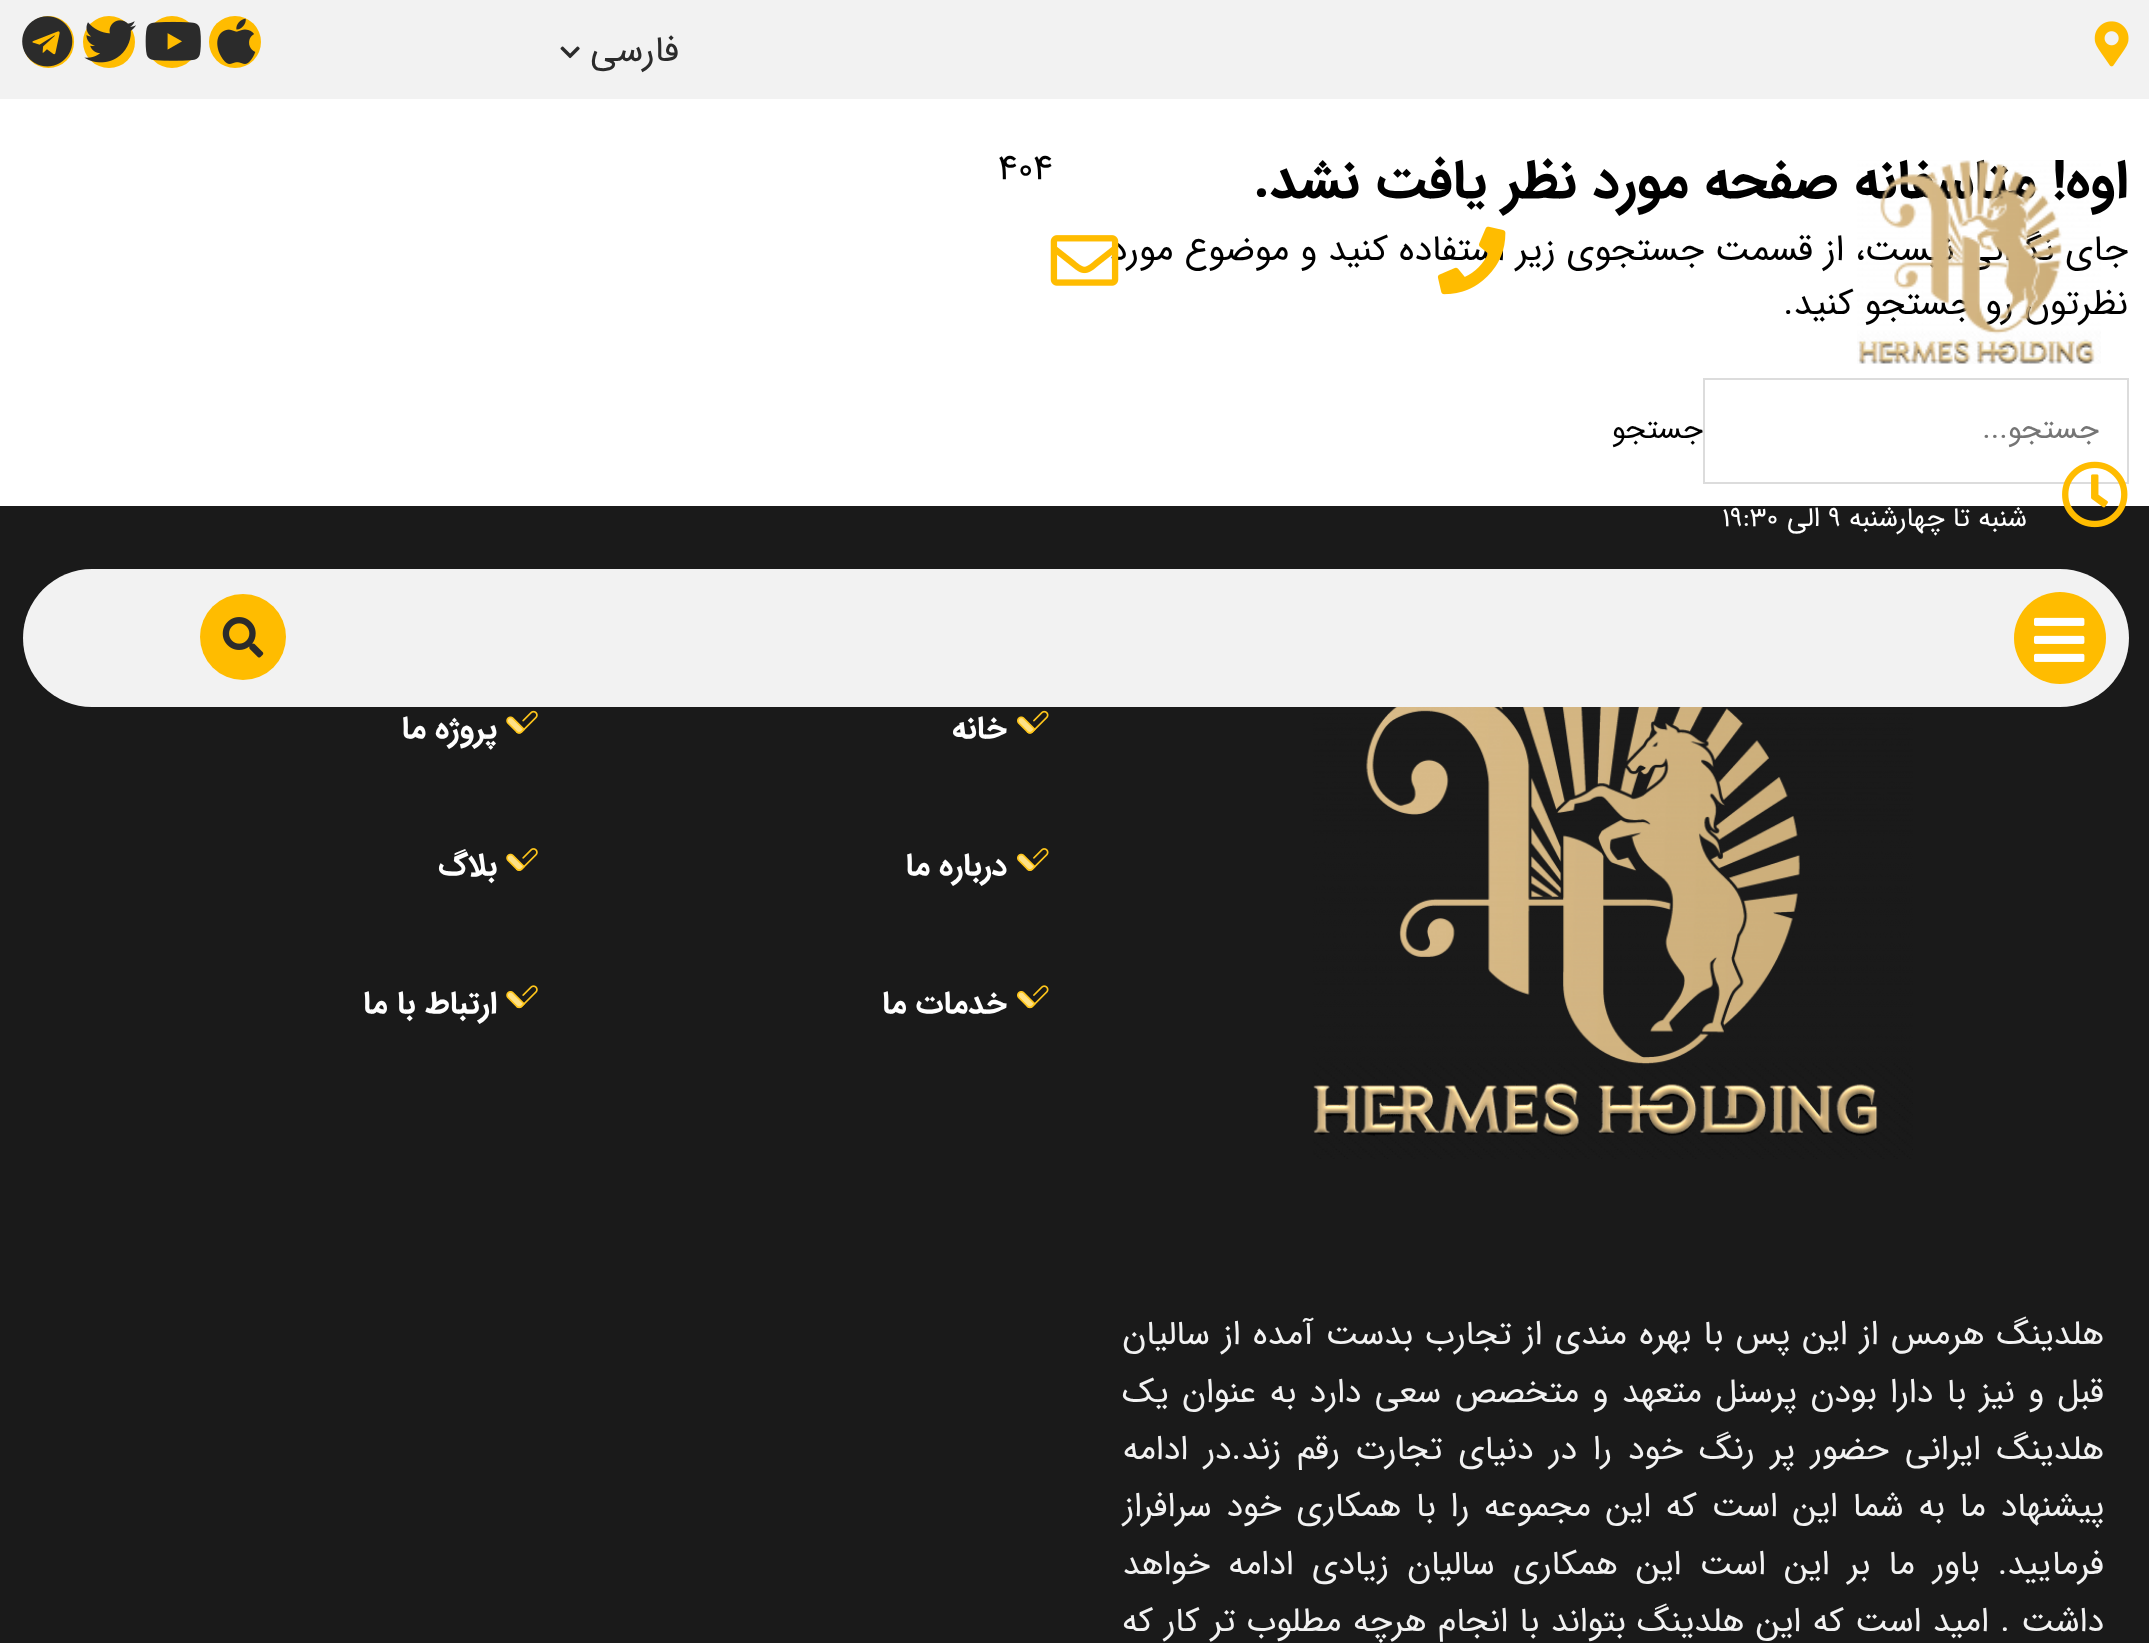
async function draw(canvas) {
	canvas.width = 2149;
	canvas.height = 1643;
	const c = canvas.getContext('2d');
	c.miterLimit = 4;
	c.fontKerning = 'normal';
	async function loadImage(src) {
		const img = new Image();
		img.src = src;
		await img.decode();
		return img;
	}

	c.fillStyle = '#fff';
	c.fillRect(0, 0, 2149, 1643);
	c.fillStyle = '#f2f2f2';
	c.fillRect(0, 0, 2149, 99);
	c.drawImage(await loadImage('img1.png'), 2094, 21, 35, 46);
	c.direction = 'rtl';
	c.font = '36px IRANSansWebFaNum';
	c.fillStyle = '#2b2b2b';
	c.fillText('فارسی', 679, 61);
	c.drawImage(await loadImage('img2.png'), 560, 46, 20, 13);
	c.fillStyle = '#ffbc00';
	c.beginPath();
	c.arc(235, 42, 26, 0, 2 * Math.PI);
	c.fill();
	c.drawImage(await loadImage('img3.png'), 217, 18, 39, 46);
	c.beginPath();
	c.arc(172, 42, 26, 0, 2 * Math.PI);
	c.fill();
	c.drawImage(await loadImage('img4.png'), 145, 21, 56, 40);
	c.beginPath();
	c.arc(109, 42, 26, 0, 2 * Math.PI);
	c.fill();
	c.drawImage(await loadImage('img5.png'), 84, 20, 52, 43);
	c.beginPath();
	c.roundRect(23, 16, 51, 52, 25.5);
	c.fill();
	c.drawImage(await loadImage('img6.png'), 22, 16, 51, 51);
	c.font = 'bold 54px IRANSansWebFaNum';
	c.fillStyle = '#000';
	c.fillText('اوه! متاسفانه صفحه مورد نظر یافت نشد.', 2128, 197);
	c.font = '36px IRANSansWebFaNum';
	c.fillText('جای نگرانی نیست، از قسمت جستجوی زیر استفاده کنید و موضوع مورد', 2128, 260);
	c.fillText('نظرتون رو جستجو کنید.', 2128, 314);
	c.drawImage(await loadImage('img7.png'), 1857, 160, 244, 204);
	c.drawImage(await loadImage('img8.png'), 1437, 226, 69, 69);
	c.drawImage(await loadImage('img9.png'), 1050, 235, 69, 51);
	c.strokeStyle = '#dcdcdc';
	c.lineWidth = 2;
	c.strokeRect(1704, 379, 424, 104);
	c.fillStyle = '#1a1a1a';
	c.fillRect(0, 506, 2149, 1137);
	c.drawImage(await loadImage('img10.png'), 2062, 461, 66, 67);
	c.font = '27px IRANSansWebFaNum';
	c.fillStyle = '#fff';
	c.fillText('شنبه تا چهارشنبه', 2027, 526);
	c.direction = 'ltr';
	c.fillText('9', 1828, 526);
	c.direction = 'rtl';
	c.fillText('الی', 1820, 526);
	c.direction = 'ltr';
	c.fillText('19:30', 1722, 526);
	c.fillStyle = '#f2f2f2';
	c.beginPath();
	c.roundRect(23, 569, 2106, 138, 69);
	c.fill();
	c.fillStyle = '#ffbc00';
	c.beginPath();
	c.arc(2060, 638, 46, 0, 2 * Math.PI);
	c.fill();
	c.drawImage(await loadImage('img11.png'), 2034, 617, 51, 45);
	c.beginPath();
	c.arc(243, 637, 43, 0, 2 * Math.PI);
	c.fill();
	c.drawImage(await loadImage('img12.png'), 222, 617, 42, 41);
	c.direction = 'rtl';
	c.font = '30px IRANSansWebFaNum';
	c.fillStyle = '#757575';
	c.fillText('جستجو...', 2099, 438);
	c.fillStyle = '#000';
	c.fillText('جستجو', 1703, 438);
	c.direction = 'ltr';
	c.font = '36px IRANSansWebFaNum';
	c.fillText('404', 998, 179);
	c.drawImage(await loadImage('img13.png'), 1017, 710, 32, 24);
	c.direction = 'rtl';
	c.font = 'bold 31.5px IRANSansWebFaNum';
	c.fillStyle = '#fff';
	c.fillText('خانه', 1007, 738);
	c.drawImage(await loadImage('img14.png'), 506, 710, 32, 24);
	c.fillText('پروژه', 497, 738);
	c.fillText('ما', 426, 738);
	c.drawImage(await loadImage('img15.png'), 1017, 848, 32, 23);
	c.fillText('درباره ما', 1007, 875);
	c.drawImage(await loadImage('img16.png'), 506, 848, 32, 23);
	c.fillText('بلاگ', 497, 875);
	c.drawImage(await loadImage('img17.png'), 1017, 985, 32, 24);
	c.fillText('خدمات ما', 1007, 1013);
	c.drawImage(await loadImage('img18.png'), 506, 985, 32, 24);
	c.fillText('ارتباط با ما', 497, 1013);
	c.drawImage(await loadImage('img19.png'), 1313, 707, 600, 452);
	c.wordSpacing = '2px';
	c.font = '33.75px IRANSansWebFaNum';
	c.fillStyle = '#f2f2f2';
	c.fillText('هلدینگ هرمس از این پس با بهره مندی از تجارب بدست آمده از سالیان', 2104, 1344);
	c.wordSpacing = '3.25px';
	c.fillText('قبل و نیز با دارا بودن پرسنل متعهد و متخصص سعی دارد به عنوان یک', 2104, 1402);
	c.wordSpacing = '5.9px';
	c.fillText('هلدینگ ایرانی حضور پر رنگ خود را در دنیای تجارت رقم زند.در ادامه', 2104, 1459);
	c.wordSpacing = '4.6px';
	c.fillText('پیشنهاد ما به شما این است که این مجموعه را با همکاری خود سرافراز', 2104, 1516);
	c.wordSpacing = '8.1px';
	c.fillText('فرمایید. باور ما بر این است این همکاری سالیان زیادی ادامه خواهد', 2104, 1574);
	c.wordSpacing = '1.25px';
	c.fillText('داشت . امید است که این هلدینگ بتواند با انجام هرچه مطلوب تر کار که', 2104, 1631);
}

draw(document.querySelector('canvas'));
